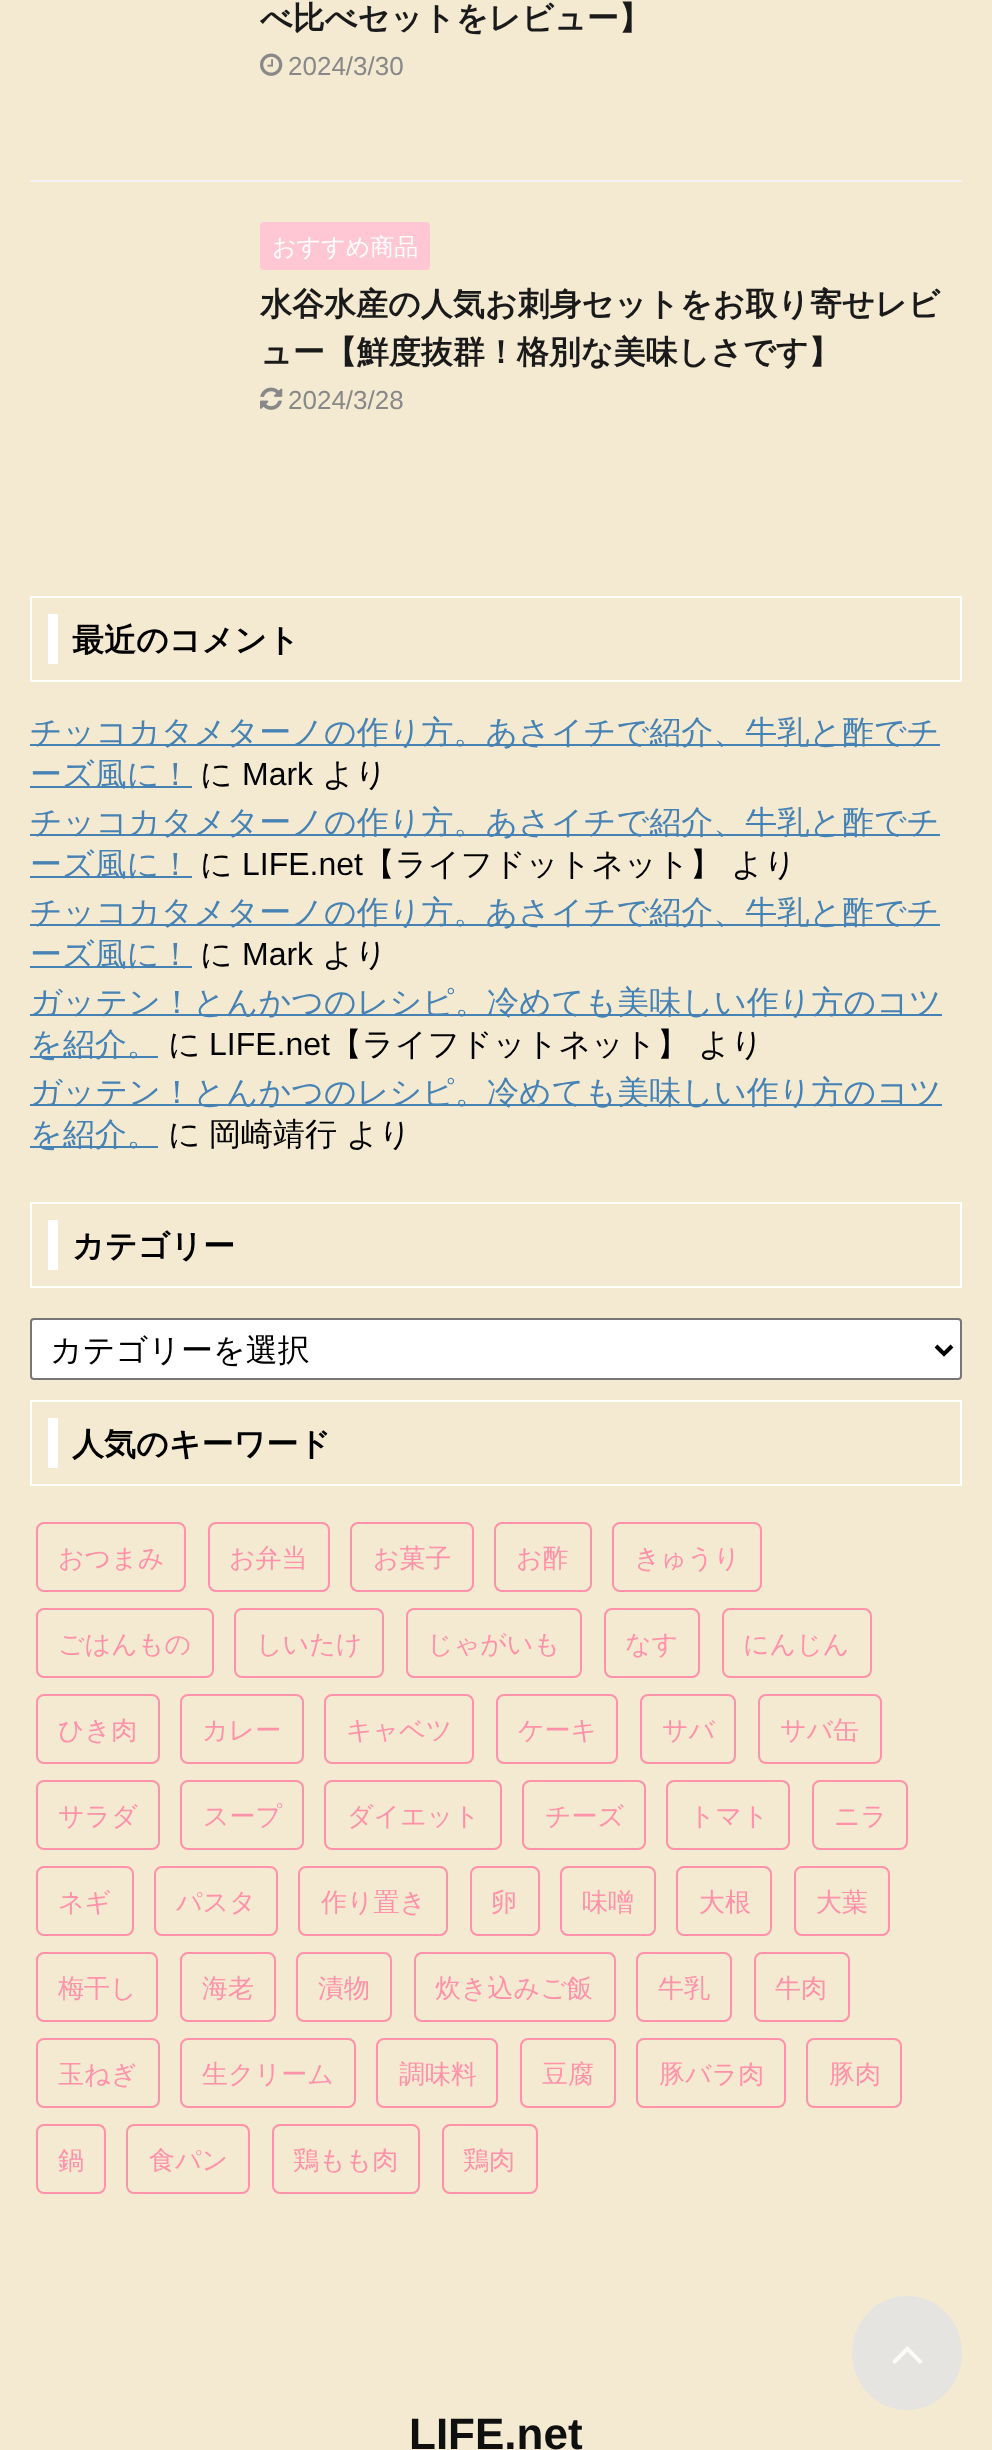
async function draw(canvas) {
	canvas.width = 992;
	canvas.height = 2450;
	const c = canvas.getContext('2d');
	c.miterLimit = 4;
	c.fontKerning = 'normal';
	async function loadImage(src) {
		const img = new Image();
		img.src = src;
		await img.decode();
		return img;
	}

	c.fillStyle = '#f4ead2';
	c.fillRect(0, 0, 992, 2450);
	c.fillStyle = '#f3f3f3';
	c.fillRect(30, 180, 932, 2);
	c.font = 'bold 32px WenQuanYi Zen Hei';
	c.fillStyle = '#1a1a1a';
	c.fillText('べ比べセットをレビュー】', 260, 29);
	c.drawImage(await loadImage('img1.png'), 260, 53, 23, 23);
	c.font = '26px Liberation Sans';
	c.fillStyle = '#888';
	c.fillText('2024/3/30', 288, 75);
	c.fillStyle = '#ffc6d4';
	c.beginPath();
	c.roundRect(260, 222, 170, 48, 4);
	c.fill();
	c.font = '500 24px WenQuanYi Zen Hei';
	c.fillStyle = '#fff';
	c.fillText('おすすめ商品', 272, 255);
	c.font = 'bold 32px WenQuanYi Zen Hei';
	c.fillStyle = '#1a1a1a';
	c.fillText('水谷水産の人気お刺身セットをお取り寄せレビ', 260, 315);
	c.fillText('ュー【鮮度抜群！格別な美味しさです】', 260, 363);
	c.drawImage(await loadImage('img2.png'), 260, 387, 23, 23);
	c.font = '26px Liberation Sans';
	c.fillStyle = '#888';
	c.fillText('2024/3/28', 288, 409);
	c.strokeStyle = '#fff';
	c.lineWidth = 2;
	c.strokeRect(31, 597, 930, 84);
	c.fillStyle = '#fff';
	c.fillRect(48, 614, 10, 50);
	c.font = 'bold 32px WenQuanYi Zen Hei';
	c.fillStyle = '#000';
	c.fillText('最近のコメント', 72, 651);
	c.fillStyle = '#4682b4';
	c.fillRect(30, 744, 910, 2);
	c.font = '500 32px WenQuanYi Zen Hei';
	c.fillText('チッコカタメターノの作り方。あさイチで紹介、牛乳と酢でチ', 30, 743);
	c.fillRect(30, 786, 162, 2);
	c.fillText('ーズ風に！', 30, 785);
	c.fillStyle = '#000';
	c.fillText('に', 200, 785);
	c.font = '32px Liberation Sans';
	c.fillText('Mark', 242, 785);
	c.font = '500 32px WenQuanYi Zen Hei';
	c.fillText('より', 322, 785);
	c.fillStyle = '#4682b4';
	c.fillRect(30, 834, 910, 2);
	c.fillText('チッコカタメターノの作り方。あさイチで紹介、牛乳と酢でチ', 30, 833);
	c.fillRect(30, 876, 162, 2);
	c.fillText('ーズ風に！', 30, 875);
	c.fillStyle = '#000';
	c.fillText('に', 200, 875);
	c.font = '32px Liberation Sans';
	c.fillText('LIFE.net', 242, 875);
	c.font = '500 32px WenQuanYi Zen Hei';
	c.fillText('【ライフドットネット】', 363, 875);
	c.fillText('より', 731, 875);
	c.fillStyle = '#4682b4';
	c.fillRect(30, 924, 910, 2);
	c.fillText('チッコカタメターノの作り方。あさイチで紹介、牛乳と酢でチ', 30, 923);
	c.fillRect(30, 966, 162, 2);
	c.fillText('ーズ風に！', 30, 965);
	c.fillStyle = '#000';
	c.fillText('に', 200, 965);
	c.font = '32px Liberation Sans';
	c.fillText('Mark', 242, 965);
	c.font = '500 32px WenQuanYi Zen Hei';
	c.fillText('より', 322, 965);
	c.fillStyle = '#4682b4';
	c.fillRect(30, 1014, 912, 2);
	c.fillText('ガッテン！とんかつのレシピ。冷めても美味しい作り方のコツ', 30, 1013);
	c.fillRect(30, 1056, 128, 2);
	c.fillText('を紹介。', 30, 1055);
	c.fillStyle = '#000';
	c.fillText('に', 168, 1055);
	c.font = '32px Liberation Sans';
	c.fillText('LIFE.net', 209, 1055);
	c.font = '500 32px WenQuanYi Zen Hei';
	c.fillText('【ライフドットネット】', 330, 1055);
	c.fillText('より', 698, 1055);
	c.fillStyle = '#4682b4';
	c.fillRect(30, 1104, 912, 2);
	c.fillText('ガッテン！とんかつのレシピ。冷めても美味しい作り方のコツ', 30, 1103);
	c.fillRect(30, 1146, 128, 2);
	c.fillText('を紹介。', 30, 1145);
	c.fillStyle = '#000';
	for (const [text, x, y] of [
		['に', 168, 1145],
		['岡崎靖行', 209, 1145],
		['より', 346, 1145],
	]) {
		c.fillText(text, x, y);
	}
	c.strokeRect(31, 1203, 930, 84);
	c.fillStyle = '#fff';
	c.fillRect(48, 1220, 10, 50);
	c.font = 'bold 32px WenQuanYi Zen Hei';
	c.fillStyle = '#000';
	c.fillText('カテゴリー', 72, 1257);
	c.fillStyle = '#fff';
	c.beginPath();
	c.roundRect(31, 1319, 930, 60, 3);
	c.fill();
	c.strokeStyle = '#767676';
	c.stroke();
	c.beginPath();
	c.moveTo(936, 1346);
	c.lineTo(944, 1354);
	c.lineTo(952, 1346);
	c.strokeStyle = '#000';
	c.lineWidth = 4;
	c.stroke();
	c.font = '500 32px WenQuanYi Zen Hei';
	c.fillStyle = '#000';
	c.fillText('カテゴリーを選択', 50, 1361);
	c.strokeStyle = '#fff';
	c.lineWidth = 2;
	c.strokeRect(31, 1401, 930, 84);
	c.fillStyle = '#fff';
	c.fillRect(48, 1418, 10, 50);
	c.font = 'bold 32px WenQuanYi Zen Hei';
	c.fillStyle = '#000';
	c.fillText('人気のキーワード', 72, 1455);
	c.beginPath();
	c.roundRect(37, 1523, 148, 68, 7);
	c.strokeStyle = '#ff91aa';
	c.stroke();
	c.font = '500 26px WenQuanYi Zen Hei';
	c.fillStyle = '#ff91aa';
	c.fillText('おつまみ', 58, 1567);
	c.beginPath();
	c.roundRect(209, 1523, 120, 68, 7);
	c.stroke();
	c.fillText('お弁当', 229, 1567);
	c.beginPath();
	c.roundRect(351, 1523, 122, 68, 7);
	c.stroke();
	c.fillText('お菓子', 373, 1567);
	c.beginPath();
	c.roundRect(495, 1523, 96, 68, 7);
	c.stroke();
	c.fillText('お酢', 516, 1567);
	c.beginPath();
	c.roundRect(613, 1523, 148, 68, 7);
	c.stroke();
	c.fillText('きゅうり', 634, 1567);
	c.beginPath();
	c.roundRect(37, 1609, 176, 68, 7);
	c.stroke();
	c.fillText('ごはんもの', 58, 1653);
	c.beginPath();
	c.roundRect(235, 1609, 148, 68, 7);
	c.stroke();
	c.fillText('しいたけ', 256, 1653);
	c.beginPath();
	c.roundRect(407, 1609, 174, 68, 7);
	c.stroke();
	c.fillText('じゃがいも', 427, 1653);
	c.beginPath();
	c.roundRect(605, 1609, 94, 68, 7);
	c.stroke();
	c.fillText('なす', 625, 1653);
	c.beginPath();
	c.roundRect(723, 1609, 148, 68, 7);
	c.stroke();
	c.fillText('にんじん', 743, 1653);
	c.beginPath();
	c.roundRect(37, 1695, 122, 68, 7);
	c.stroke();
	c.fillText('ひき肉', 58, 1739);
	c.beginPath();
	c.roundRect(181, 1695, 122, 68, 7);
	c.stroke();
	c.fillText('カレー', 202, 1739);
	c.beginPath();
	c.roundRect(325, 1695, 148, 68, 7);
	c.stroke();
	c.fillText('キャベツ', 346, 1739);
	c.beginPath();
	c.roundRect(497, 1695, 120, 68, 7);
	c.stroke();
	c.fillText('ケーキ', 518, 1739);
	c.beginPath();
	c.roundRect(641, 1695, 94, 68, 7);
	c.stroke();
	c.fillText('サバ', 662, 1739);
	c.beginPath();
	c.roundRect(759, 1695, 122, 68, 7);
	c.stroke();
	c.fillText('サバ缶', 780, 1739);
	c.beginPath();
	c.roundRect(37, 1781, 122, 68, 7);
	c.stroke();
	c.fillText('サラダ', 58, 1825);
	c.beginPath();
	c.roundRect(181, 1781, 122, 68, 7);
	c.stroke();
	c.fillText('スープ', 203, 1825);
	c.beginPath();
	c.roundRect(325, 1781, 176, 68, 7);
	c.stroke();
	c.fillText('ダイエット', 347, 1825);
	c.beginPath();
	c.roundRect(523, 1781, 122, 68, 7);
	c.stroke();
	c.fillText('チーズ', 545, 1825);
	c.beginPath();
	c.roundRect(667, 1781, 122, 68, 7);
	c.stroke();
	c.fillText('トマト', 689, 1825);
	c.beginPath();
	c.roundRect(813, 1781, 94, 68, 7);
	c.stroke();
	c.fillText('ニラ', 834, 1825);
	c.beginPath();
	c.roundRect(37, 1867, 96, 68, 7);
	c.stroke();
	c.fillText('ネギ', 58, 1911);
	c.beginPath();
	c.roundRect(155, 1867, 122, 68, 7);
	c.stroke();
	c.fillText('パスタ', 176, 1911);
	c.beginPath();
	c.roundRect(299, 1867, 148, 68, 7);
	c.stroke();
	c.fillText('作り置き', 321, 1911);
	c.beginPath();
	c.roundRect(471, 1867, 68, 68, 7);
	c.stroke();
	c.fillText('卵', 491, 1911);
	c.beginPath();
	c.roundRect(561, 1867, 94, 68, 7);
	c.stroke();
	c.fillText('味噌', 582, 1911);
	c.beginPath();
	c.roundRect(677, 1867, 94, 68, 7);
	c.stroke();
	c.fillText('大根', 699, 1911);
	c.beginPath();
	c.roundRect(795, 1867, 94, 68, 7);
	c.stroke();
	c.fillText('大葉', 816, 1911);
	c.beginPath();
	c.roundRect(37, 1953, 120, 68, 7);
	c.stroke();
	c.fillText('梅干し', 58, 1997);
	c.beginPath();
	c.roundRect(181, 1953, 94, 68, 7);
	c.stroke();
	c.fillText('海老', 202, 1997);
	c.beginPath();
	c.roundRect(297, 1953, 94, 68, 7);
	c.stroke();
	c.fillText('漬物', 318, 1997);
	c.beginPath();
	c.roundRect(415, 1953, 200, 68, 7);
	c.stroke();
	c.fillText('炊き込みご飯', 435, 1997);
	c.beginPath();
	c.roundRect(637, 1953, 94, 68, 7);
	c.stroke();
	c.fillText('牛乳', 658, 1997);
	c.beginPath();
	c.roundRect(755, 1953, 94, 68, 7);
	c.stroke();
	c.fillText('牛肉', 775, 1997);
	c.beginPath();
	c.roundRect(37, 2039, 122, 68, 7);
	c.stroke();
	c.fillText('玉ねぎ', 58, 2083);
	c.beginPath();
	c.roundRect(181, 2039, 174, 68, 7);
	c.stroke();
	c.fillText('生クリーム', 202, 2083);
	c.beginPath();
	c.roundRect(377, 2039, 120, 68, 7);
	c.stroke();
	c.fillText('調味料', 399, 2083);
	c.beginPath();
	c.roundRect(521, 2039, 94, 68, 7);
	c.stroke();
	c.fillText('豆腐', 542, 2083);
	c.beginPath();
	c.roundRect(637, 2039, 148, 68, 7);
	c.stroke();
	c.fillText('豚バラ肉', 659, 2083);
	c.beginPath();
	c.roundRect(807, 2039, 94, 68, 7);
	c.stroke();
	c.fillText('豚肉', 829, 2083);
	c.beginPath();
	c.roundRect(37, 2125, 68, 68, 7);
	c.stroke();
	c.fillText('鍋', 58, 2169);
	c.beginPath();
	c.roundRect(127, 2125, 122, 68, 7);
	c.stroke();
	c.fillText('食パン', 149, 2169);
	c.beginPath();
	c.roundRect(273, 2125, 146, 68, 7);
	c.stroke();
	c.fillText('鶏もも肉', 293, 2169);
	c.beginPath();
	c.roundRect(443, 2125, 94, 68, 7);
	c.stroke();
	c.fillText('鶏肉', 463, 2169);
	c.font = 'bold 44px Liberation Sans';
	c.fillStyle = '#0f0f0f';
	c.fillText('LIFE.net', 409, 2449);
	c.fillStyle = '#e6e4e0';
	c.beginPath();
	c.ellipse(907, 2353, 55, 57, 0, 0, 2 * Math.PI);
	c.fill();
	c.drawImage(await loadImage('img3.png'), 892, 2346, 31, 18);
}

draw(document.querySelector('canvas'));
